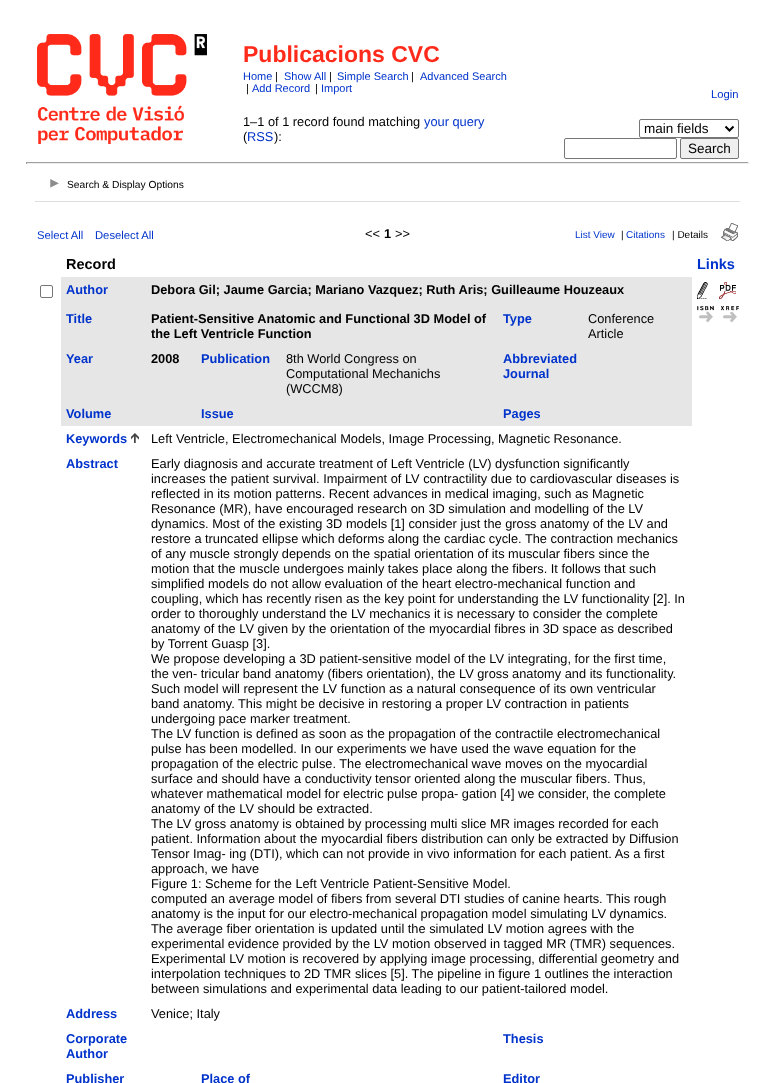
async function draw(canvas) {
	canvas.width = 775;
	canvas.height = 1083;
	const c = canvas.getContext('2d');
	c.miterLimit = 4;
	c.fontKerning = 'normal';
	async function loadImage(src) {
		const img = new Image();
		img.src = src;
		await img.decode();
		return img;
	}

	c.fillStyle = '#fff';
	c.fillRect(0, 0, 775, 1083);
	c.drawImage(await loadImage('img1.png'), 37, 34, 170, 110);
	c.font = 'bold 23px Liberation Sans';
	c.fillStyle = '#ff2a19';
	c.fillText('Publicacions CVC', 243, 62);
	c.font = '11px Liberation Sans';
	c.fillStyle = '#03c';
	c.fillText('Home', 243, 80);
	c.fillStyle = '#000';
	c.fillText('|', 275, 80);
	c.fillStyle = '#03c';
	c.fillText('Show All', 284, 80);
	c.fillStyle = '#000';
	c.fillText('|', 329, 80);
	c.fillStyle = '#03c';
	c.fillText('Simple Search', 337, 80);
	c.fillStyle = '#000';
	c.fillText('|', 411, 80);
	c.fillStyle = '#03c';
	c.fillText('Advanced Search', 420, 80);
	c.fillStyle = '#000';
	c.fillText('|', 246, 92);
	c.fillStyle = '#03c';
	c.fillText('Add Record', 252, 92);
	c.fillStyle = '#000';
	c.fillText('|', 315, 92);
	c.fillStyle = '#03c';
	c.fillText('Import', 321, 92);
	c.font = '11.25px Liberation Sans';
	c.fillText('Login', 711, 98);
	c.beginPath();
	c.roundRect(639.5, 119.5, 99, 18, 1.5);
	c.strokeStyle = '#767676';
	c.stroke();
	c.beginPath();
	c.moveTo(725.5, 126.5);
	c.lineTo(729.5, 130.5);
	c.lineTo(733.5, 126.5);
	c.strokeStyle = '#000';
	c.lineWidth = 2;
	c.stroke();
	c.font = '13.5px Liberation Sans';
	c.fillStyle = '#000';
	c.fillText('main fields', 644, 133);
	c.beginPath();
	c.roundRect(564.5, 138.5, 112, 20, 1.5);
	c.strokeStyle = '#767676';
	c.lineWidth = 1;
	c.stroke();
	c.fillStyle = '#efefef';
	c.beginPath();
	c.roundRect(680.5, 138.5, 58, 20, 1.5);
	c.fill();
	c.stroke();
	c.fillStyle = '#000';
	c.fillText('Search', 688, 153);
	c.font = '12.8px Liberation Sans';
	c.fillText('1–1 of 1 record found matching', 243, 126);
	c.fillStyle = '#03c';
	c.fillText('your query', 424, 126);
	c.fillStyle = '#000';
	c.fillText('(', 243, 141);
	c.fillStyle = '#03c';
	c.fillText('RSS', 247, 141);
	c.fillStyle = '#000';
	c.fillText('):', 274, 141);
	for (const [x, y, w, h, color] of [
		[26, 162, 723, 1, '#9f9f9f'],
		[748, 162, 1, 2, '#eee'],
		[26, 163, 723, 1, '#eee'],
		[26, 162, 1, 2, '#9f9f9f'],
	]) {
		c.fillStyle = color;
		c.fillRect(x, y, w, h);
	}
	c.drawImage(await loadImage('img2.png'), 50, 179, 9, 9);
	c.font = '10.25px Liberation Sans';
	c.fillStyle = '#000';
	c.fillText('Search & Display Options', 67, 188);
	c.fillStyle = '#dedede';
	c.fillRect(35, 201, 705, 1);
	c.font = '11.25px Liberation Sans';
	c.fillStyle = '#03c';
	c.fillText('Select All', 37, 239);
	c.fillText('Deselect All', 95, 239);
	c.font = '12.8px Liberation Sans';
	c.fillStyle = '#000';
	c.fillText('<<', 365, 238);
	c.font = 'bold 12.8px Liberation Sans';
	c.fillText('1', 384, 238);
	c.font = '12.8px Liberation Sans';
	c.fillText('>>', 395, 238);
	c.font = '10px Liberation Sans';
	c.fillStyle = '#03c';
	c.fillText('List View', 575, 238);
	c.fillStyle = '#000';
	c.fillText('|', 621, 238);
	c.fillStyle = '#03c';
	c.fillText('Citations', 626, 238);
	c.fillStyle = '#000';
	c.fillText('| Details', 672, 238);
	c.drawImage(await loadImage('img3.png'), 721, 223, 17, 18);
	c.font = 'bold 14.5px Liberation Sans';
	c.fillText('Record', 66, 269);
	c.fillStyle = '#03c';
	c.fillText('Links', 697, 269);
	c.beginPath();
	c.roundRect(40.5, 285.5, 12, 12, 1.5);
	c.stroke();
	c.fillStyle = '#e6e6e6';
	c.fillRect(61, 277, 631, 29);
	c.font = 'bold 12.8px Liberation Sans';
	c.fillStyle = '#03c';
	c.fillText('Author', 66, 294);
	c.fillStyle = '#000';
	c.fillText('Debora Gil; Jaume Garcia; Mariano Vazquez; Ruth Aris; Guilleaume Houzeaux', 151, 294);
	c.drawImage(await loadImage('img4.png'), 697, 282, 11, 17);
	c.drawImage(await loadImage('img5.png'), 719, 282, 17, 17);
	c.drawImage(await loadImage('img6.png'), 697, 306, 17, 16);
	c.drawImage(await loadImage('img7.png'), 721, 306, 18, 16);
	c.fillStyle = '#e6e6e6';
	c.fillRect(61, 306, 631, 40);
	c.fillStyle = '#03c';
	c.fillText('Title', 66, 323);
	c.fillStyle = '#000';
	c.fillText('Patient-Sensitive Anatomic and Functional 3D Model of', 151, 323);
	c.fillText('the Left Ventricle Function', 151, 338);
	c.fillStyle = '#03c';
	c.fillText('Type', 503, 323);
	c.font = '12.8px Liberation Sans';
	c.fillStyle = '#000';
	c.fillText('Conference', 588, 323);
	c.fillText('Article', 588, 338);
	c.fillStyle = '#e6e6e6';
	c.fillRect(61, 346, 631, 55);
	c.font = 'bold 12.8px Liberation Sans';
	c.fillStyle = '#03c';
	c.fillText('Year', 66, 363);
	c.fillStyle = '#000';
	c.fillText('2008', 151, 363);
	c.fillStyle = '#03c';
	c.fillText('Publication', 201, 363);
	c.font = '12.8px Liberation Sans';
	c.fillStyle = '#000';
	for (const [text, x, y] of [
		['8th World Congress on', 286, 363],
		['Computational Mechanichs', 286, 378],
		['(WCCM8)', 286, 393],
	]) {
		c.fillText(text, x, y);
	}
	c.font = 'bold 12.8px Liberation Sans';
	c.fillStyle = '#03c';
	c.fillText('Abbreviated', 503, 363);
	c.fillText('Journal', 503, 378);
	c.fillStyle = '#e6e6e6';
	c.fillRect(61, 401, 631, 25);
	c.fillStyle = '#03c';
	for (const [text, x, y] of [
		['Volume', 66, 418],
		['Issue', 201, 418],
		['Pages', 503, 418],
		['Keywords', 66, 443],
	]) {
		c.fillText(text, x, y);
	}
	c.drawImage(await loadImage('img8.png'), 131, 433, 8, 10);
	c.font = '12.8px Liberation Sans';
	c.fillStyle = '#000';
	c.fillText('Left Ventricle, Electromechanical Models, Image Processing, Magnetic Resonance.', 151, 443);
	c.font = 'bold 12.8px Liberation Sans';
	c.fillStyle = '#03c';
	c.fillText('Abstract', 66, 468);
	c.font = '12.8px Liberation Sans';
	c.fillStyle = '#000';
	for (const [text, x, y] of [
		['Early diagnosis and accurate treatment of Left Ventricle (LV) dysfunction significantly', 151, 468],
		['increases the patient survival. Impairment of LV contractility due to cardiovascular diseases is', 151, 483],
		['reflected in its motion patterns. Recent advances in medical imaging, such as Magnetic', 151, 498],
		['Resonance (MR), have encouraged research on 3D simulation and modelling of the LV', 151, 513],
		['dynamics. Most of the existing 3D models [1] consider just the gross anatomy of the LV and', 151, 528],
		['restore a truncated ellipse which deforms along the cardiac cycle. The contraction mechanics', 151, 543],
		['of any muscle strongly depends on the spatial orientation of its muscular fibers since the', 151, 558],
		['motion that the muscle undergoes mainly takes place along the fibers. It follows that such', 151, 573],
		['simplified models do not allow evaluation of the heart electro-mechanical function and', 151, 588],
		['coupling, which has recently risen as the key point for understanding the LV functionality [2]. In', 151, 603],
		['order to thoroughly understand the LV mechanics it is necessary to consider the complete', 151, 618],
		['anatomy of the LV given by the orientation of the myocardial fibres in 3D space as described', 151, 633],
		['by Torrent Guasp [3].', 151, 648],
		['We propose developing a 3D patient-sensitive model of the LV integrating, for the first time,', 151, 663],
		['the ven- tricular band anatomy (fibers orientation), the LV gross anatomy and its functionality.', 151, 678],
		['Such model will represent the LV function as a natural consequence of its own ventricular', 151, 693],
		['band anatomy. This might be decisive in restoring a proper LV contraction in patients', 151, 708],
		['undergoing pace marker treatment.', 151, 723],
		['The LV function is defined as soon as the propagation of the contractile electromechanical', 151, 738],
		['pulse has been modelled. In our experiments we have used the wave equation for the', 151, 753],
		['propagation of the electric pulse. The electromechanical wave moves on the myocardial', 151, 768],
		['surface and should have a conductivity tensor oriented along the muscular fibers. Thus,', 151, 783],
		['whatever mathematical model for electric pulse propa- gation [4] we consider, the complete', 151, 798],
		['anatomy of the LV should be extracted.', 151, 813],
		['The LV gross anatomy is obtained by processing multi slice MR images recorded for each', 151, 828],
		['patient. Information about the myocardial fibers distribution can only be extracted by Diffusion', 151, 843],
		['Tensor Imag- ing (DTI), which can not provide in vivo information for each patient. As a first', 151, 858],
		['approach, we have', 151, 873],
		['Figure 1: Scheme for the Left Ventricle Patient-Sensitive Model.', 151, 888],
		['computed an average model of fibers from several DTI studies of canine hearts. This rough', 151, 903],
		['anatomy is the input for our electro-mechanical propagation model simulating LV dynamics.', 151, 918],
		['The average fiber orientation is updated until the simulated LV motion agrees with the', 151, 933],
		['experimental evidence provided by the LV motion observed in tagged MR (TMR) sequences.', 151, 948],
		['Experimental LV motion is recovered by applying image processing, differential geometry and', 151, 963],
		['interpolation techniques to 2D TMR slices [5]. The pipeline in figure 1 outlines the interaction', 151, 978],
		['between simulations and experimental data leading to our patient-tailored model.', 151, 993],
	]) {
		c.fillText(text, x, y);
	}
	c.font = 'bold 12.8px Liberation Sans';
	c.fillStyle = '#03c';
	c.fillText('Address', 66, 1018);
	c.font = '12.8px Liberation Sans';
	c.fillStyle = '#000';
	c.fillText('Venice; Italy', 151, 1018);
	c.font = 'bold 12.8px Liberation Sans';
	c.fillStyle = '#03c';
	for (const [text, x, y] of [
		['Corporate', 66, 1043],
		['Author', 66, 1058],
		['Thesis', 503, 1043],
		['Publisher', 66, 1083],
		['Place of', 201, 1083],
		['Editor', 503, 1083],
	]) {
		c.fillText(text, x, y);
	}
}

draw(document.querySelector('canvas'));
